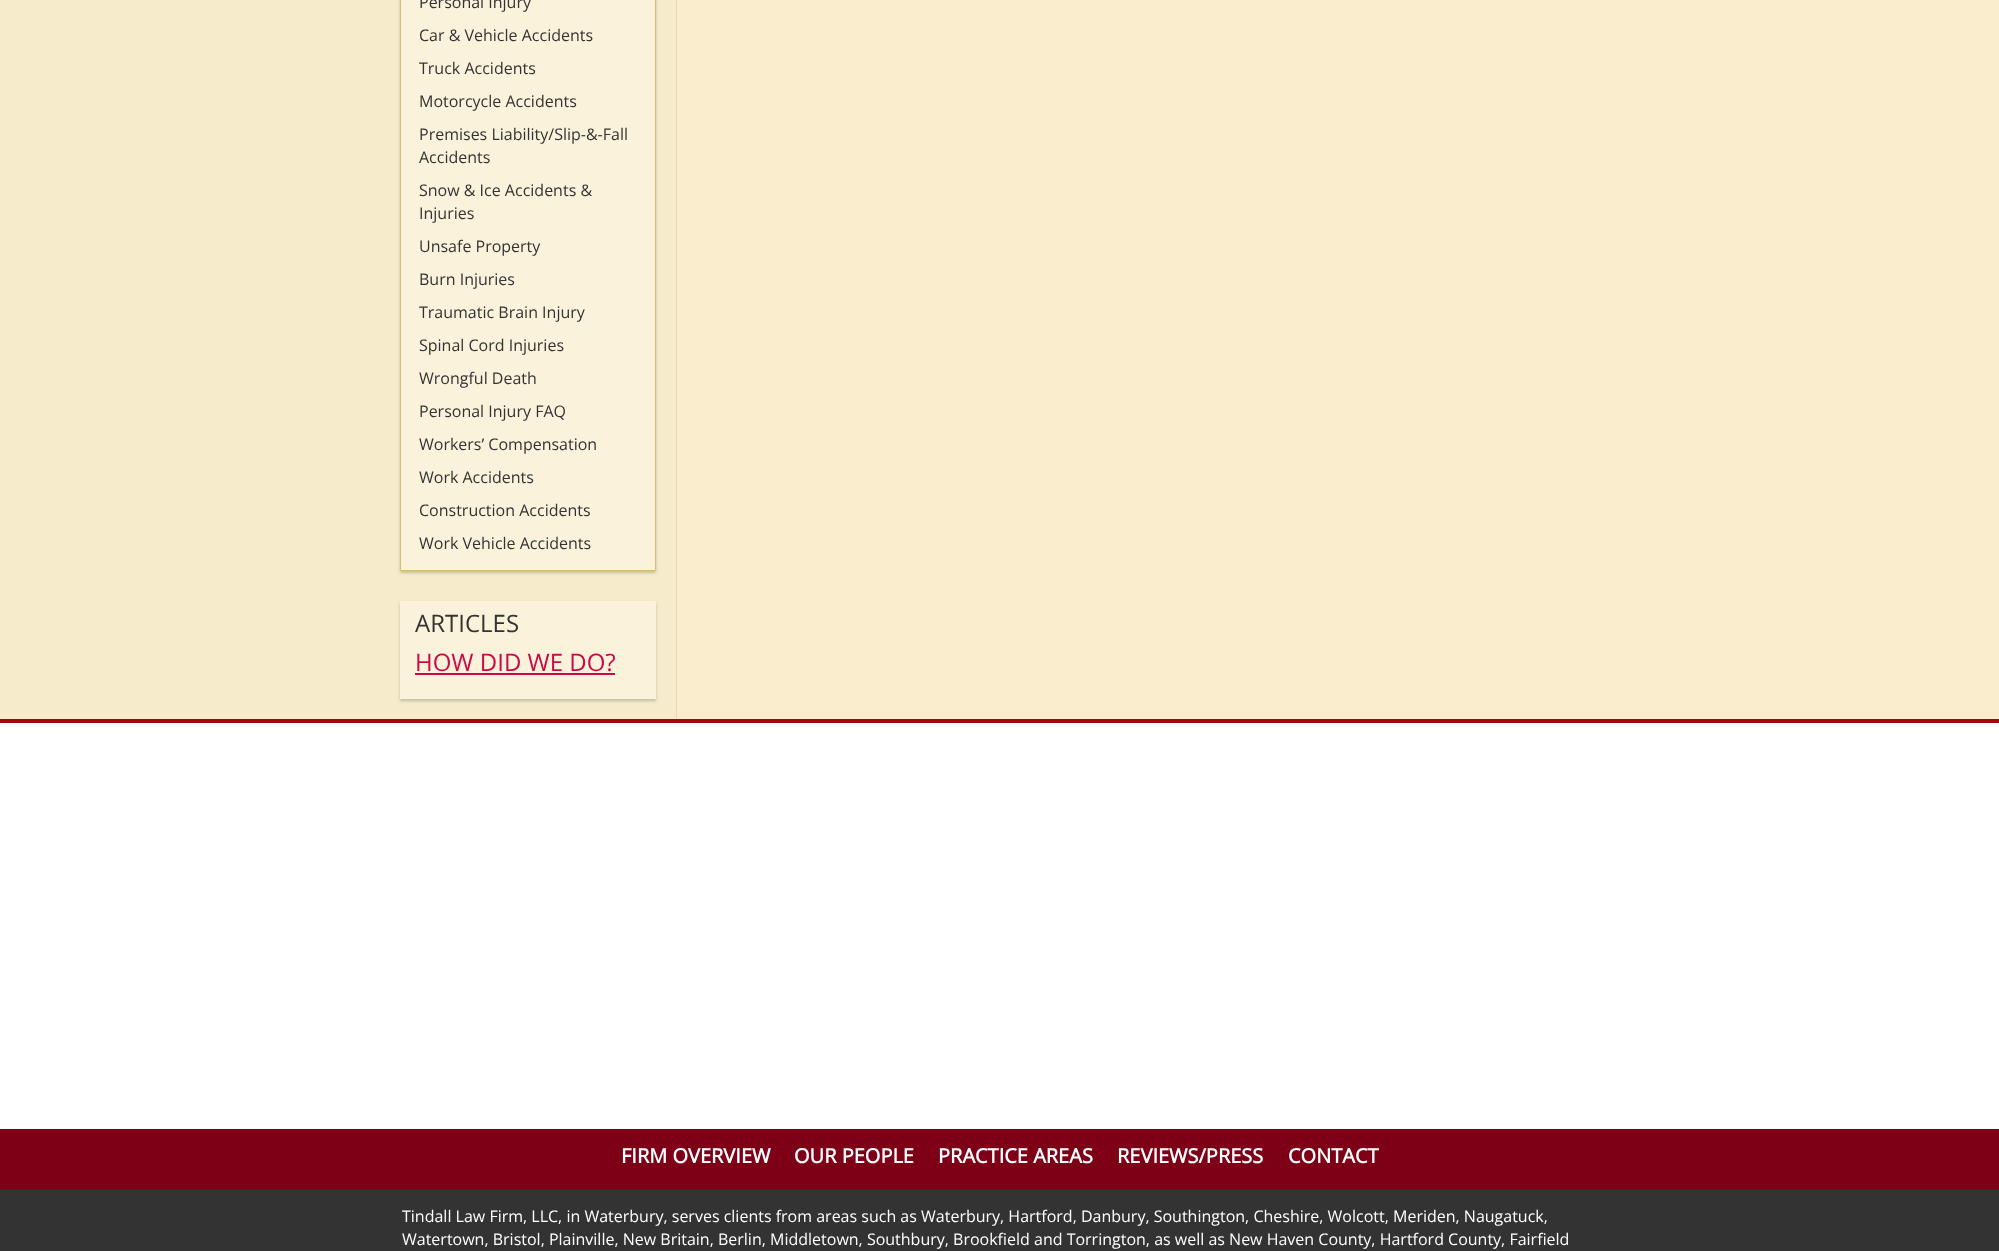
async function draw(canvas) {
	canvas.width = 1999;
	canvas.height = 1251;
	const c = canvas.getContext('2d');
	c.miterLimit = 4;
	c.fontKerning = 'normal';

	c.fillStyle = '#fff';
	c.fillRect(0, 0, 1999, 1251);
	for (const [x, y, w, h, color] of [
		[677, 0, 1322, 719, '#faedcd'],
		[676, 0, 1, 719, '#e6dabd'],
		[0, 0, 676, 719, '#f6ebcb'],
	]) {
		c.fillStyle = color;
		c.fillRect(x, y, w, h);
	}
	c.fillStyle = '#00000033';
	c.filter = 'blur(1.5px)';
	c.beginPath();
	c.rect(400, -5, 256, 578);
	c.fill();
	c.filter = 'none';
	c.fillStyle = '#fbf2dc';
	c.beginPath();
	c.rect(400.5, -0.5, 255, 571);
	c.fill();
	c.strokeStyle = '#d9bc75';
	c.stroke();
	c.font = '16px Open Sans';
	c.fillStyle = '#333';
	for (const [text, x, y] of [
		['Personal Injury', 419, 8],
		['Car & Vehicle Accidents', 419, 41],
		['Truck Accidents', 419, 74],
		['Motorcycle Accidents', 419, 107],
		['Premises Liability/Slip-&-Fall', 419, 140],
		['Accidents', 419, 163],
		['Snow & Ice Accidents &', 419, 196],
		['Injuries', 419, 219],
		['Unsafe Property', 419, 252],
		['Burn Injuries', 419, 285],
		['Traumatic Brain Injury', 419, 318],
		['Spinal Cord Injuries', 419, 351],
		['Wrongful Death', 419, 384],
		['Personal Injury FAQ', 419, 417],
		['Workers’ Compensation', 419, 450],
		['Work Accidents', 419, 483],
		['Construction Accidents', 419, 516],
		['Work Vehicle Accidents', 419, 549],
	]) {
		c.fillText(text, x, y);
	}
	c.fillStyle = '#00000033';
	c.filter = 'blur(1.5px)';
	c.beginPath();
	c.rect(400, 603, 256, 98);
	c.fill();
	c.filter = 'none';
	c.fillStyle = '#fbf2dc';
	c.fillRect(400, 601, 256, 98);
	c.font = '24px Open Sans';
	c.fillStyle = '#333';
	c.fillText('ARTICLES', 415, 632);
	c.fillStyle = '#cb0a45';
	c.fillText('HOW DID WE DO?', 415, 671);
	for (const [x, y, w, h, color] of [
		[415, 673, 200, 2, '#cb0a45'],
		[0, 719, 1999, 4, '#9e0b0f'],
		[0, 1129, 1999, 61, '#7e0017'],
	]) {
		c.fillStyle = color;
		c.fillRect(x, y, w, h);
	}
	c.font = 'bold 20px Open Sans';
	c.fillStyle = '#fff';
	for (const [text, x, y] of [
		['FIRM OVERVIEW', 621, 1163],
		['OUR PEOPLE', 794, 1163],
		['PRACTICE AREAS', 938, 1163],
		['REVIEWS/PRESS', 1117, 1163],
		['CONTACT', 1288, 1163],
	]) {
		c.fillText(text, x, y);
	}
	c.fillStyle = '#333';
	c.fillRect(0, 1190, 1999, 61);
	c.font = '16px Open Sans';
	c.fillStyle = '#fff';
	c.fillText('Tindall Law Firm, LLC, in Waterbury, serves clients from areas such as Waterbury, Hartford, Danbury, Southington, Cheshire, Wolcott, Meriden, Naugatuck,', 402, 1222);
	c.fillText('Watertown, Bristol, Plainville, New Britain, Berlin, Middletown, Southbury, Brookfield and Torrington, as well as New Haven County, Hartford County, Fairfield', 402, 1245);
}

draw(document.querySelector('canvas'));
